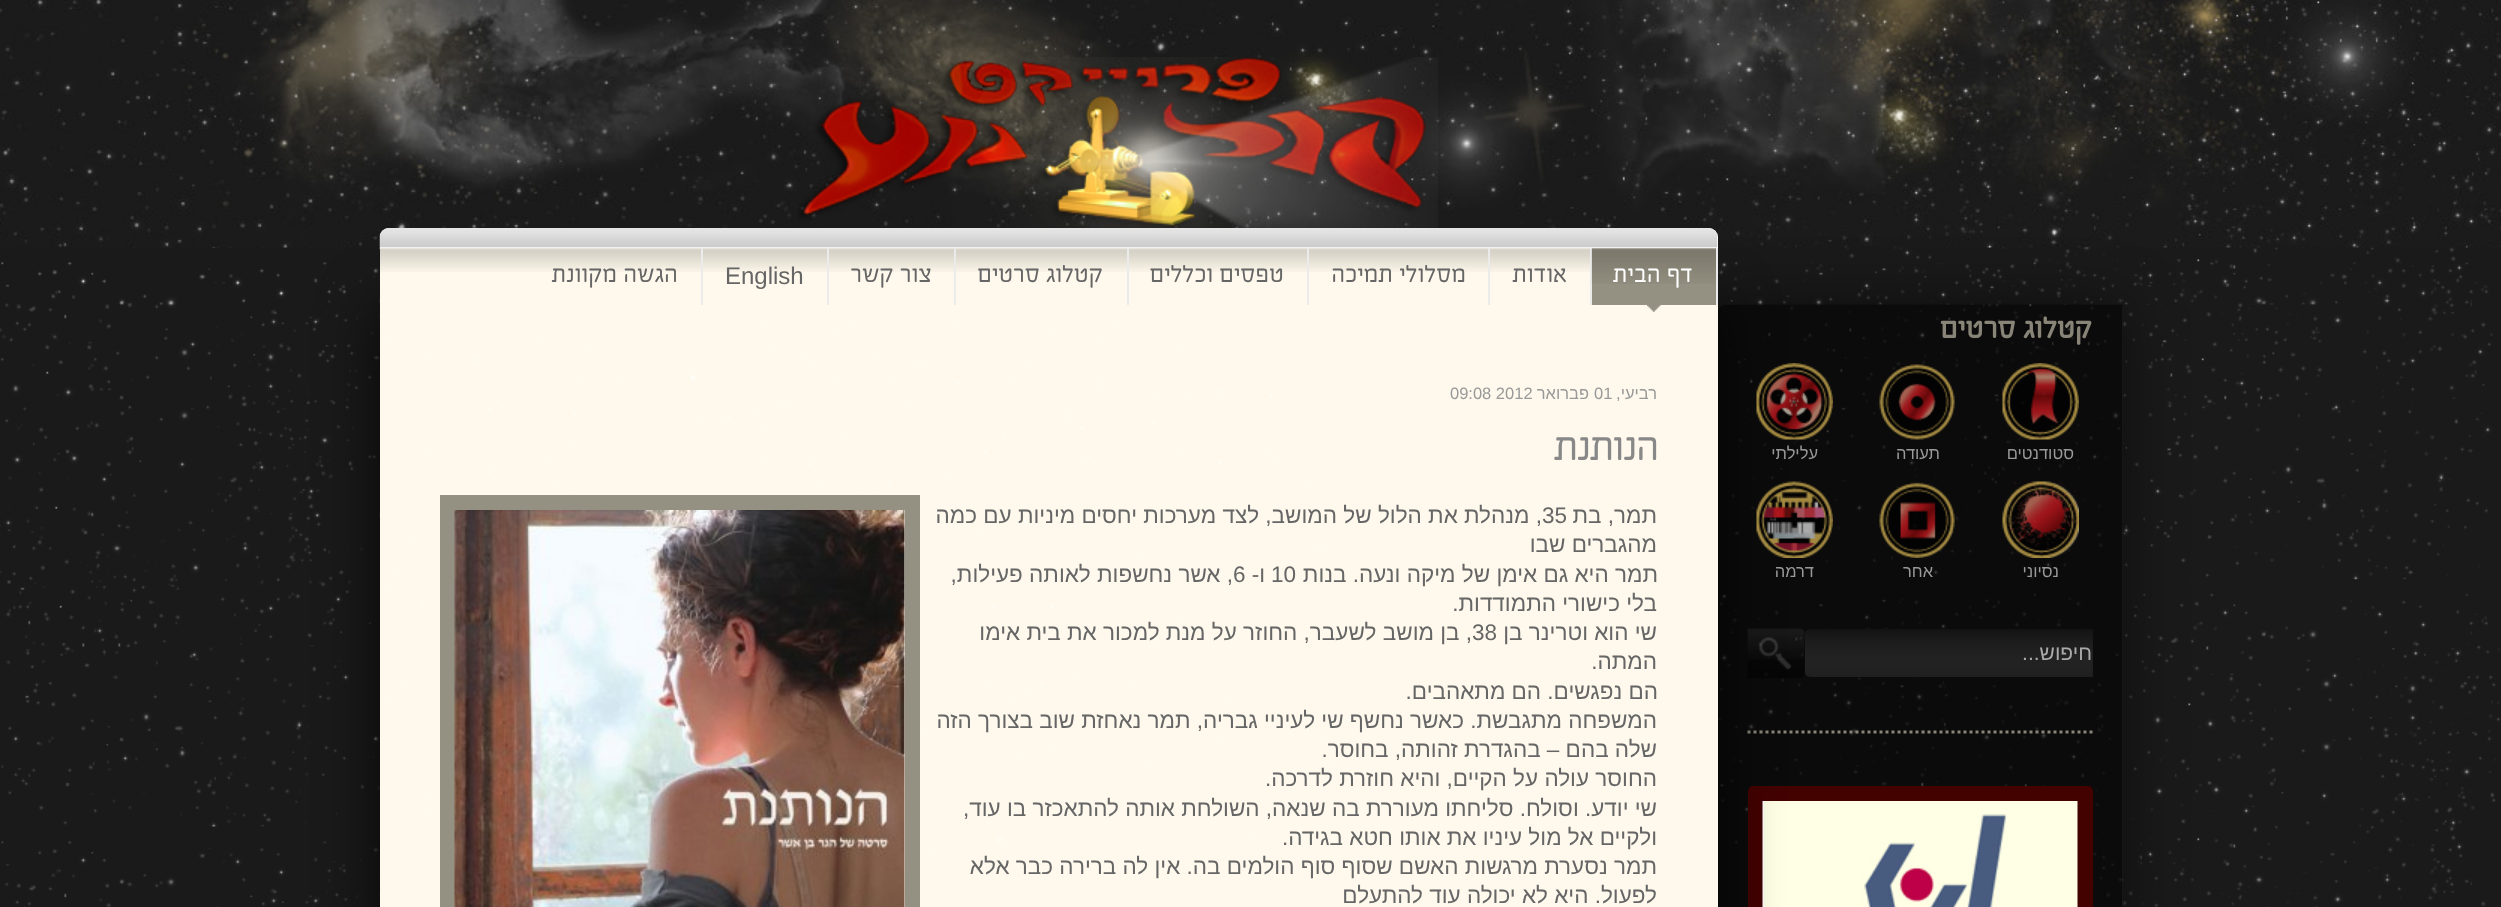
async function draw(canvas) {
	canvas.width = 2501;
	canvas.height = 907;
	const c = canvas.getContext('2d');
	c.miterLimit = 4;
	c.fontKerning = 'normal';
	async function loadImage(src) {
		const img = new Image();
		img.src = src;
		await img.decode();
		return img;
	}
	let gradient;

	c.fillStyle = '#1a1a1a';
	c.fillRect(0, 0, 2501, 907);
	c.drawImage(await loadImage('img1.png'), 113, 247, 2388, 660);
	c.drawImage(await loadImage('img2.png'), 0, 0, 2501, 248);
	c.drawImage(await loadImage('img3.png'), 798, 57, 640, 171);
	c.fillRect(113, 248, 267, 659);
	c.drawImage(await loadImage('img5.png'), 0, 247, 380, 660);
	c.save();
	c.beginPath();
	c.moveTo(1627, 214);
	c.lineTo(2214, 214);
	c.lineTo(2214, 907);
	c.lineTo(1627, 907);
	c.closePath();
	c.moveTo(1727, 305);
	c.lineTo(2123, 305);
	c.lineTo(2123, 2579);
	c.lineTo(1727, 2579);
	c.bezierCurveTo(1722, 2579, 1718, 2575, 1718, 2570);
	c.lineTo(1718, 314);
	c.bezierCurveTo(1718, 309, 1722, 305, 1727, 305);
	c.closePath();
	c.clip('evenodd');
	c.fillStyle = '#00000080';
	c.filter = 'blur(30px)';
	c.beginPath();
	c.roundRect(1718, 305, 405, 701, 9);
	c.fill();
	c.filter = 'none';
	c.restore();
	c.drawImage(await loadImage('img10.png'), 1718, 304, 405, 603);
	c.beginPath();
	c.moveTo(1747.5, 732);
	c.lineTo(2092.5, 732);
	c.strokeStyle = '#888477';
	c.lineWidth = 3;
	c.setLineDash([3, 3]);
	c.stroke();
	c.beginPath();
	c.roundRect(1805, 629, 288, 48, [5, 0, 0, 5]);
	c.fill();
	gradient = c.createLinearGradient(1805, 629, 1805, 677);
	gradient.addColorStop(0, '#0000004d');
	gradient.addColorStop(1, '#8080800d');
	c.fillStyle = gradient;
	c.beginPath();
	c.roundRect(1805, 629, 288, 48, [5, 0, 0, 5]);
	c.fill();
	c.fillStyle = '#430200';
	c.beginPath();
	c.roundRect(1748, 786, 345, 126, 5);
	c.fill();
	c.drawImage(await loadImage('img18.png'), 1762, 801, 316, 106);
	c.fillStyle = '#000000bf';
	c.filter = 'blur(30px)';
	c.beginPath();
	c.roundRect(380, 305, 1338, 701, 9);
	c.fill();
	c.filter = 'none';
	c.drawImage(await loadImage('img6.png'), 1, 262, 2488, 43);
	c.fillStyle = '#fef9ec';
	c.fillRect(380, 248, 1210, 57);
	c.drawImage(await loadImage('img7.png'), 379, 247, 1211, 25);
	c.fillStyle = '#fff';
	c.beginPath();
	c.roundRect(380, 228, 1338, 20, [9, 9, 0, 0]);
	c.fill();
	c.drawImage(await loadImage('img4.png'), 379, 228, 1339, 20);
	c.fillStyle = '#fef9ec';
	c.fillRect(380, 305, 1338, 602);
	c.drawImage(await loadImage('img8.png'), 1647, 305, 14, 7);
	c.fillStyle = '#959182';
	c.fillRect(1592, 248, 124, 57);
	c.fillStyle = '#ebebeb';
	c.fillRect(1590, 248, 2, 57);
	c.drawImage(await loadImage('img9.png'), 1591, 248, 125, 36);
	c.fillRect(1716, 248, 2, 57);
	c.direction = 'rtl';
	c.font = '28.5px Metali';
	c.fillStyle = '#fff';
	c.fillText('דף הבית', 1693, 282);
	c.fillStyle = '#666';
	c.fillText('אודות', 1567, 282);
	c.fillStyle = '#ebebeb';
	c.fillRect(1488, 248, 2, 57);
	c.fillStyle = '#666';
	c.fillText('מסלולי תמיכה', 1466, 282);
	c.fillStyle = '#ebebeb';
	c.fillRect(1307, 248, 2, 57);
	c.fillStyle = '#666';
	c.fillText('טפסים וכללים', 1284, 282);
	c.fillStyle = '#ebebeb';
	c.fillRect(1127, 248, 2, 57);
	c.fillStyle = '#666';
	c.fillText('קטלוג סרטים', 1103, 282);
	c.fillStyle = '#ebebeb';
	c.fillRect(954, 248, 2, 57);
	c.fillStyle = '#666';
	c.fillText('צור קשר', 932, 282);
	c.fillStyle = '#ebebeb';
	c.fillRect(827, 248, 2, 57);
	c.direction = 'ltr';
	c.font = '24px Liberation Sans';
	c.fillStyle = '#666';
	c.fillText('English', 725, 284);
	c.fillStyle = '#ebebeb';
	c.fillRect(701, 248, 2, 57);
	c.direction = 'rtl';
	c.font = '28.5px Metali';
	c.fillStyle = '#666';
	c.fillText('הגשה מקוונת', 678, 282);
	c.font = 'bold 34.5px Metali';
	c.fillStyle = '#888477';
	c.fillText('קטלוג סרטים', 2092, 338);
	c.drawImage(await loadImage('img11.png'), 2002, 363, 77, 77);
	c.font = '16.5px Liberation Sans';
	c.fillStyle = '#999';
	c.fillText('סטודנטים', 2074, 459);
	c.drawImage(await loadImage('img12.png'), 1879, 364, 76, 76);
	c.fillText('תעודה', 1940, 459);
	c.drawImage(await loadImage('img13.png'), 1756, 363, 77, 77);
	c.fillText('עלילתי', 1818, 459);
	c.drawImage(await loadImage('img14.png'), 2002, 481, 77, 77);
	c.fillText('נסיוני', 2059, 577);
	c.drawImage(await loadImage('img15.png'), 1879, 482, 76, 76);
	c.fillText('אחר', 1933, 577);
	c.drawImage(await loadImage('img16.png'), 1756, 481, 77, 77);
	c.fillText('דרמה', 1814, 577);
	c.font = '21px Liberation Sans';
	c.fillStyle = '#aaa';
	c.fillText('חיפוש...', 2092, 660);
	c.drawImage(await loadImage('img17.png'), 1747, 628, 58, 50);
	c.drawImage(await loadImage('img19.png'), 379, 320, 982, 564);
	c.font = '16.5px Liberation Sans';
	c.fillStyle = '#999';
	c.fillText('רביעי,', 1657, 399);
	c.direction = 'ltr';
	c.fillText('01', 1594, 399);
	c.direction = 'rtl';
	c.fillText('פברואר', 1589, 399);
	c.direction = 'ltr';
	c.fillText('09:08 2012', 1450, 399);
	c.letterSpacing = '-1.5px';
	c.direction = 'rtl';
	c.font = '48px Metali';
	c.fillStyle = '#888';
	c.fillText('הנותנת', 1658, 460);
	c.letterSpacing = '0px';
	c.font = '22.5px Liberation Sans';
	c.fillStyle = '#666';
	c.fillText('תמר, בת', 1657, 523);
	c.direction = 'ltr';
	c.fillText('35', 1542, 523);
	c.direction = 'rtl';
	for (const [text, x, y] of [
		[', מנהלת את הלול של המושב, לצד מערכות יחסים מיניות עם כמה', 1542, 523],
		['מהגברים שבו', 1657, 552],
		['תמר היא גם אימן של מיקה ונעה. בנות', 1658, 582],
	]) {
		c.fillText(text, x, y);
	}
	c.direction = 'ltr';
	c.fillText('10', 1271, 582);
	c.direction = 'rtl';
	c.fillText('ו-', 1265, 582);
	c.direction = 'ltr';
	c.fillText('6', 1233, 582);
	c.direction = 'rtl';
	for (const [text, x, y] of [
		[', אשר נחשפות לאותה פעילות,', 1233, 582],
		['בלי כישורי התמודדות.', 1657, 611],
		['שי הוא וטרינר בן', 1657, 640],
	]) {
		c.fillText(text, x, y);
	}
	c.direction = 'ltr';
	c.fillText('38', 1472, 640);
	c.direction = 'rtl';
	for (const [text, x, y] of [
		[', בן מושב לשעבר, החוזר על מנת למכור את בית אימו', 1472, 640],
		['המתה.', 1657, 669],
		['הם נפגשים. הם מתאהבים.', 1658, 699],
		['המשפחה מתגבשת. כאשר נחשף שי לעיניי גבריה, תמר נאחזת שוב בצורך הזה', 1657, 728],
		['שלה בהם – בהגדרת זהותה, בחוסר.', 1657, 757],
		['החוסר עולה על הקיים, והיא חוזרת לדרכה.', 1657, 786],
		['שי יודע. וסולח. סליחתו מעוררת בה שנאה, השולחת אותה להתאכזר בו עוד,', 1657, 816],
		['ולקיים אל מול עיניו את אותו חטא בגידה.', 1657, 845],
		['תמר נסערת מרגשות האשם שסוף סוף הולמים בה. אין לה ברירה כבר אלא', 1657, 874],
		['לפעול. היא לא יכולה עוד להתעלם', 1657, 903],
	]) {
		c.fillText(text, x, y);
	}
	c.strokeStyle = '#959182';
	c.lineWidth = 15;
	c.setLineDash([]);
	c.strokeRect(447.5, 502.5, 465, 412);
	c.drawImage(await loadImage('img20.png'), 454, 510, 451, 397);
}

draw(document.querySelector('canvas'));
